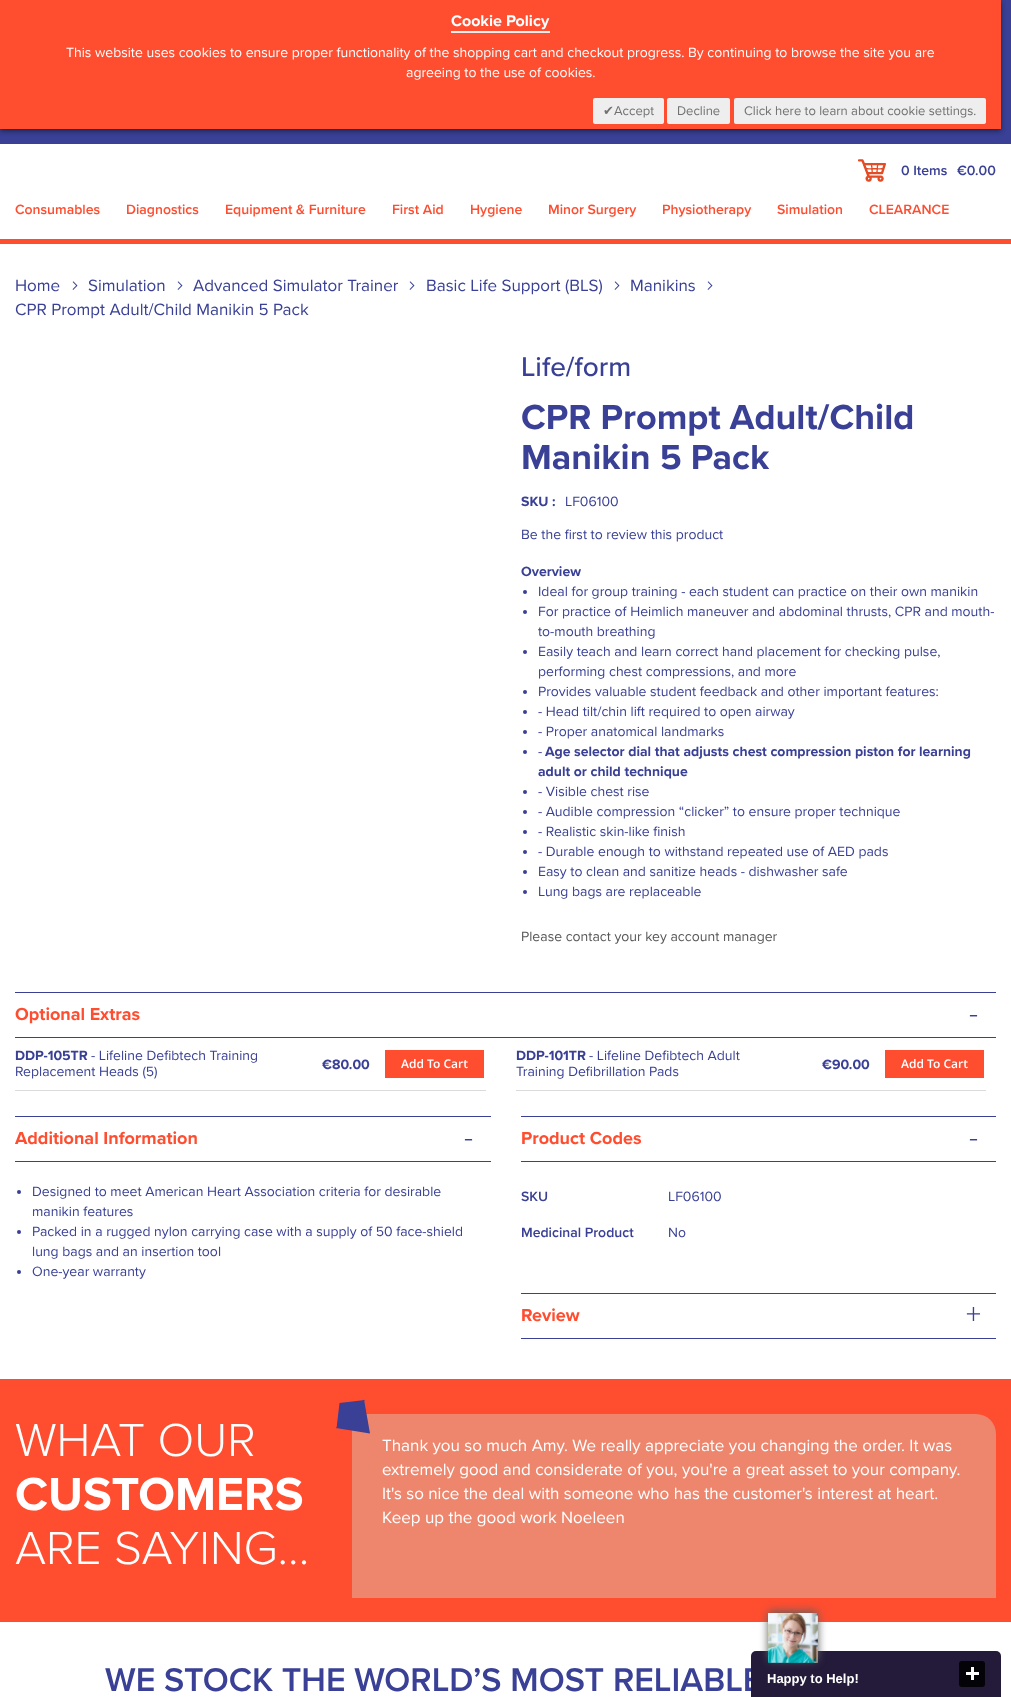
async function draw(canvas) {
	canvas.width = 1011;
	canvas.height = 1697;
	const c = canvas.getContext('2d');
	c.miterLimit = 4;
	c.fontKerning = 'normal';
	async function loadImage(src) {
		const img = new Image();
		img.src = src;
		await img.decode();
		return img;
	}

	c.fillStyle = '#fff';
	c.fillRect(0, 0, 1011, 1697);
	c.fillStyle = '#394095';
	c.fillRect(0, 0, 1011, 144);
	c.fillStyle = '#00000078';
	c.filter = 'blur(2.5px)';
	c.beginPath();
	c.rect(0, 2, 1001, 129);
	c.fill();
	c.filter = 'none';
	c.fillStyle = '#ff4d30';
	c.fillRect(0, 0, 1001, 129);
	c.font = 'bold 16px Proxima Nova';
	c.fillStyle = '#fff';
	c.fillText('Cookie Policy', 451, 26);
	c.fillStyle = '#eee';
	c.fillRect(451, 31, 99, 2);
	c.font = '14px Proxima Nova';
	c.fillStyle = '#fff';
	c.fillText('This website uses cookies to ensure proper functionality of the shopping cart and checkout progress. By continuing to browse the site you are', 66, 57);
	c.fillText('agreeing to the use of cookies.', 406, 77);
	c.fillStyle = '#eee';
	c.beginPath();
	c.roundRect(593, 98, 71, 26, 2);
	c.fill();
	c.font = '13px DejaVu Sans';
	c.fillStyle = '#717171';
	c.fillText('✔', 603, 115);
	c.font = '13px Proxima Nova';
	c.fillText('Accept', 614, 115);
	c.fillStyle = '#eee';
	c.beginPath();
	c.roundRect(667, 98, 63, 26, 2);
	c.fill();
	c.fillStyle = '#717171';
	c.fillText('Decline', 677, 115);
	c.fillStyle = '#eee';
	c.beginPath();
	c.roundRect(734, 98, 252, 26, 2);
	c.fill();
	c.fillStyle = '#717171';
	c.fillText('Click here to learn about cookie settings.', 744, 115);
	c.fillStyle = '#ff4d30';
	c.fillRect(0, 239, 1011, 5);
	c.drawImage(await loadImage('img1.png'), 858, 159, 28, 23);
	c.font = '600 14px Proxima Nova';
	c.fillStyle = '#394095';
	c.fillText('0 Items', 901, 175);
	c.fillText('€0.00', 957, 175);
	c.fillStyle = '#ff4d30';
	for (const [text, x, y] of [
		['Consumables', 15, 214],
		['Diagnostics', 126, 214],
		['Equipment & Furniture', 225, 214],
		['First Aid', 392, 214],
		['Hygiene', 470, 214],
		['Minor Surgery', 548, 214],
		['Physiotherapy', 662, 214],
		['Simulation', 777, 214],
		['CLEARANCE', 869, 214],
	]) {
		c.fillText(text, x, y);
	}
	c.font = '17px Proxima Nova';
	c.fillStyle = '#394095';
	c.fillText('Home', 15, 291);
	c.drawImage(await loadImage('img2.png'), 72, 281, 6, 9);
	c.fillText('Simulation', 88, 291);
	c.drawImage(await loadImage('img2.png'), 177, 281, 6, 9);
	c.fillText('Advanced Simulator Trainer', 193, 291);
	c.drawImage(await loadImage('img2.png'), 409, 281, 6, 9);
	c.fillText('Basic Life Support (BLS)', 426, 291);
	c.drawImage(await loadImage('img2.png'), 614, 281, 6, 9);
	c.fillText('Manikins', 630, 291);
	c.drawImage(await loadImage('img2.png'), 707, 281, 6, 9);
	c.fillText('CPR Prompt Adult/Child Manikin 5 Pack', 15, 315);
	c.font = '500 28px Proxima Nova';
	c.fillText('Life/form', 521, 376);
	c.font = 'bold 36px Proxima Nova';
	c.fillText('CPR Prompt Adult/Child', 521, 429);
	c.fillText('Manikin 5 Pack', 521, 469);
	c.font = 'bold 14px Proxima Nova';
	c.fillText('SKU :', 521, 506);
	c.font = '14px Proxima Nova';
	c.fillText('LF06100', 565, 506);
	c.fillText('Be the first to review this product', 521, 539);
	c.font = 'bold 14px Proxima Nova';
	c.fillText('Overview', 521, 576);
	c.beginPath();
	c.arc(525, 592, 2, 0, 2 * Math.PI);
	c.fill();
	c.font = '14px Proxima Nova';
	c.fillText('Ideal for group training - each student can practice on their own manikin', 538, 596);
	c.beginPath();
	c.arc(525, 612, 2, 0, 2 * Math.PI);
	c.fill();
	c.fillText('For practice of Heimlich maneuver and abdominal thrusts, CPR and mouth-', 538, 616);
	c.fillText('to-mouth breathing', 538, 636);
	c.beginPath();
	c.arc(525, 652, 2, 0, 2 * Math.PI);
	c.fill();
	c.fillText('Easily teach and learn correct hand placement for checking pulse,', 538, 656);
	c.fillText('performing chest compressions, and more', 538, 676);
	c.beginPath();
	c.arc(525, 692, 2, 0, 2 * Math.PI);
	c.fill();
	c.fillText('Provides valuable student feedback and other important features:', 538, 696);
	c.beginPath();
	c.arc(525, 712, 2, 0, 2 * Math.PI);
	c.fill();
	c.fillText('- Head tilt/chin lift required to open airway', 538, 716);
	c.beginPath();
	c.arc(525, 732, 2, 0, 2 * Math.PI);
	c.fill();
	c.fillText('- Proper anatomical landmarks', 538, 736);
	c.beginPath();
	c.arc(525, 752, 2, 0, 2 * Math.PI);
	c.fill();
	c.fillText('-', 538, 756);
	c.font = 'bold 14px Proxima Nova';
	c.fillText('Age selector dial that adjusts chest compression piston for learning', 545, 756);
	c.fillText('adult or child technique', 538, 776);
	c.beginPath();
	c.arc(525, 792, 2, 0, 2 * Math.PI);
	c.fill();
	c.font = '14px Proxima Nova';
	c.fillText('- Visible chest rise', 538, 796);
	c.beginPath();
	c.arc(525, 812, 2, 0, 2 * Math.PI);
	c.fill();
	c.fillText('- Audible compression “clicker” to ensure proper technique', 538, 816);
	c.beginPath();
	c.arc(525, 832, 2, 0, 2 * Math.PI);
	c.fill();
	c.fillText('- Realistic skin-like finish', 538, 836);
	c.beginPath();
	c.arc(525, 852, 2, 0, 2 * Math.PI);
	c.fill();
	c.fillText('- Durable enough to withstand repeated use of AED pads', 538, 856);
	c.beginPath();
	c.arc(525, 872, 2, 0, 2 * Math.PI);
	c.fill();
	c.fillText('Easy to clean and sanitize heads - dishwasher safe', 538, 876);
	c.beginPath();
	c.arc(525, 892, 2, 0, 2 * Math.PI);
	c.fill();
	c.fillText('Lung bags are replaceable', 538, 896);
	c.fillStyle = '#575757';
	c.fillText('Please contact your key account manager', 521, 941);
	c.fillStyle = '#394095';
	c.fillRect(15, 992, 981, 1);
	c.fillRect(15, 1037, 981, 1);
	c.font = 'bold 18px Proxima Nova';
	c.fillStyle = '#ff4d30';
	c.fillText('Optional Extras', 15, 1020);
	c.font = '300 30px Proxima Nova';
	c.fillStyle = '#394095';
	c.fillText('-', 969, 1023);
	c.fillStyle = '#dbdbdb';
	c.fillRect(15, 1090, 471, 1);
	c.font = 'bold 14px Proxima Nova';
	c.fillStyle = '#394095';
	c.fillText('DDP-105TR', 15, 1060);
	c.font = '14px Proxima Nova';
	c.fillText('- Lifeline Defibtech Training', 91, 1060);
	c.fillText('Replacement Heads (5)', 15, 1076);
	c.font = 'bold 14px Proxima Nova';
	c.fillText('€80.00', 322, 1069);
	c.fillStyle = '#ff4d30';
	c.fillRect(385, 1050, 99, 28);
	c.font = '600 12px Open Sans';
	c.fillStyle = '#fff';
	c.fillText('Add To Cart', 401, 1068);
	c.fillStyle = '#dbdbdb';
	c.fillRect(516, 1090, 470, 1);
	c.font = 'bold 14px Proxima Nova';
	c.fillStyle = '#394095';
	c.fillText('DDP-101TR', 516, 1060);
	c.font = '14px Proxima Nova';
	c.fillText('- Lifeline Defibtech Adult', 589, 1060);
	c.fillText('Training Defibrillation Pads', 516, 1076);
	c.font = 'bold 14px Proxima Nova';
	c.fillText('€90.00', 822, 1069);
	c.fillStyle = '#ff4d30';
	c.fillRect(885, 1050, 99, 28);
	c.font = '600 12px Open Sans';
	c.fillStyle = '#fff';
	c.fillText('Add To Cart', 901, 1068);
	c.fillStyle = '#394095';
	c.fillRect(15, 1116, 476, 1);
	c.fillRect(15, 1161, 476, 1);
	c.font = 'bold 18px Proxima Nova';
	c.fillStyle = '#ff4d30';
	c.fillText('Additional Information', 15, 1144);
	c.font = '300 30px Proxima Nova';
	c.fillStyle = '#394095';
	c.fillText('-', 464, 1147);
	c.beginPath();
	c.arc(19, 1192, 2, 0, 2 * Math.PI);
	c.fill();
	c.font = '14px Proxima Nova';
	c.fillText('Designed to meet American Heart Association criteria for desirable', 32, 1196);
	c.fillText('manikin features', 32, 1216);
	c.beginPath();
	c.arc(19, 1232, 2, 0, 2 * Math.PI);
	c.fill();
	c.fillText('Packed in a rugged nylon carrying case with a supply of 50 face-shield', 32, 1236);
	c.fillText('lung bags and an insertion tool', 32, 1256);
	c.beginPath();
	c.arc(19, 1272, 2, 0, 2 * Math.PI);
	c.fill();
	c.fillText('One-year warranty', 32, 1276);
	c.fillRect(521, 1116, 475, 1);
	c.font = 'bold 18px Proxima Nova';
	c.fillStyle = '#ff4d30';
	c.fillText('Product Codes', 521, 1144);
	c.font = '300 30px Proxima Nova';
	c.fillStyle = '#394095';
	c.fillText('-', 969, 1147);
	c.fillRect(521, 1161, 475, 1);
	c.font = '600 14px Proxima Nova';
	c.fillText('SKU', 521, 1201);
	c.font = '14px Proxima Nova';
	c.fillText('LF06100', 668, 1201);
	c.font = '600 14px Proxima Nova';
	c.fillText('Medicinal Product', 521, 1237);
	c.font = '14px Proxima Nova';
	c.fillText('No', 668, 1237);
	c.fillRect(521, 1338, 475, 1);
	c.fillRect(521, 1293, 475, 1);
	c.font = 'bold 18px Proxima Nova';
	c.fillStyle = '#ff4d30';
	c.fillText('Review', 521, 1321);
	c.font = '300 30px Proxima Nova';
	c.fillStyle = '#394095';
	c.fillText('+', 966, 1324);
	c.fillStyle = '#ff4d30';
	c.fillRect(0, 1379, 1011, 243);
	c.font = '300 48px Proxima Nova';
	c.fillStyle = '#fff';
	c.fillText('WHAT OUR', 15, 1456);
	c.font = 'bold 48px Proxima Nova';
	c.fillText('CUSTOMERS', 15, 1510);
	c.font = '300 48px Proxima Nova';
	c.fillText('ARE SAYING...', 15, 1564);
	c.fillStyle = '#ed866d';
	c.beginPath();
	c.roundRect(352, 1414, 644, 184, [0, 20, 0, 0]);
	c.fill();
	c.fillStyle = '#394095';
	c.beginPath();
	c.moveTo(365, 1400);
	c.lineTo(336.5, 1428.5);
	c.lineTo(339.5, 1403);
	c.closePath();
	c.fill();
	c.beginPath();
	c.moveTo(336, 1428);
	c.lineTo(364, 1399.5);
	c.lineTo(370, 1433.5);
	c.closePath();
	c.fill();
	c.font = '17px Proxima Nova';
	c.fillStyle = '#fff';
	for (const [text, x, y] of [
		['Thank you so much Amy. We really appreciate you changing the order. It was', 382, 1451],
		['extremely good and considerate of you, you\'re a great asset to your company.', 382, 1475],
		['It\'s so nice the deal with someone who has the customer\'s interest at heart.', 382, 1499],
		['Keep up the good work Noeleen', 382, 1523],
	]) {
		c.fillText(text, x, y);
	}
	c.font = '600 34px Proxima Nova';
	c.fillStyle = '#394095';
	c.fillText('WE STOCK THE WORLD’S MOST RELIABLE', 105, 1691);
	c.fillStyle = '#241b3b';
	c.beginPath();
	c.roundRect(751, 1651, 250, 46, [5, 5, 0, 0]);
	c.fill();
	c.fillStyle = '#5f5f5e';
	c.filter = 'blur(4.5px)';
	c.beginPath();
	c.roundRect(768, 1611, 50, 50, 5);
	c.fill();
	c.filter = 'none';
	c.drawImage(await loadImage('img3.png'), 768, 1613, 50, 50);
	c.fillStyle = '#040307';
	c.beginPath();
	c.roundRect(959, 1661, 26, 26, 3);
	c.fill();
	c.drawImage(await loadImage('img4.png'), 966, 1667, 13, 13);
	c.font = 'bold 13px Liberation Sans';
	c.fillStyle = '#fff';
	c.fillText('Happy to Help!', 767, 1683);
}

draw(document.querySelector('canvas'));
